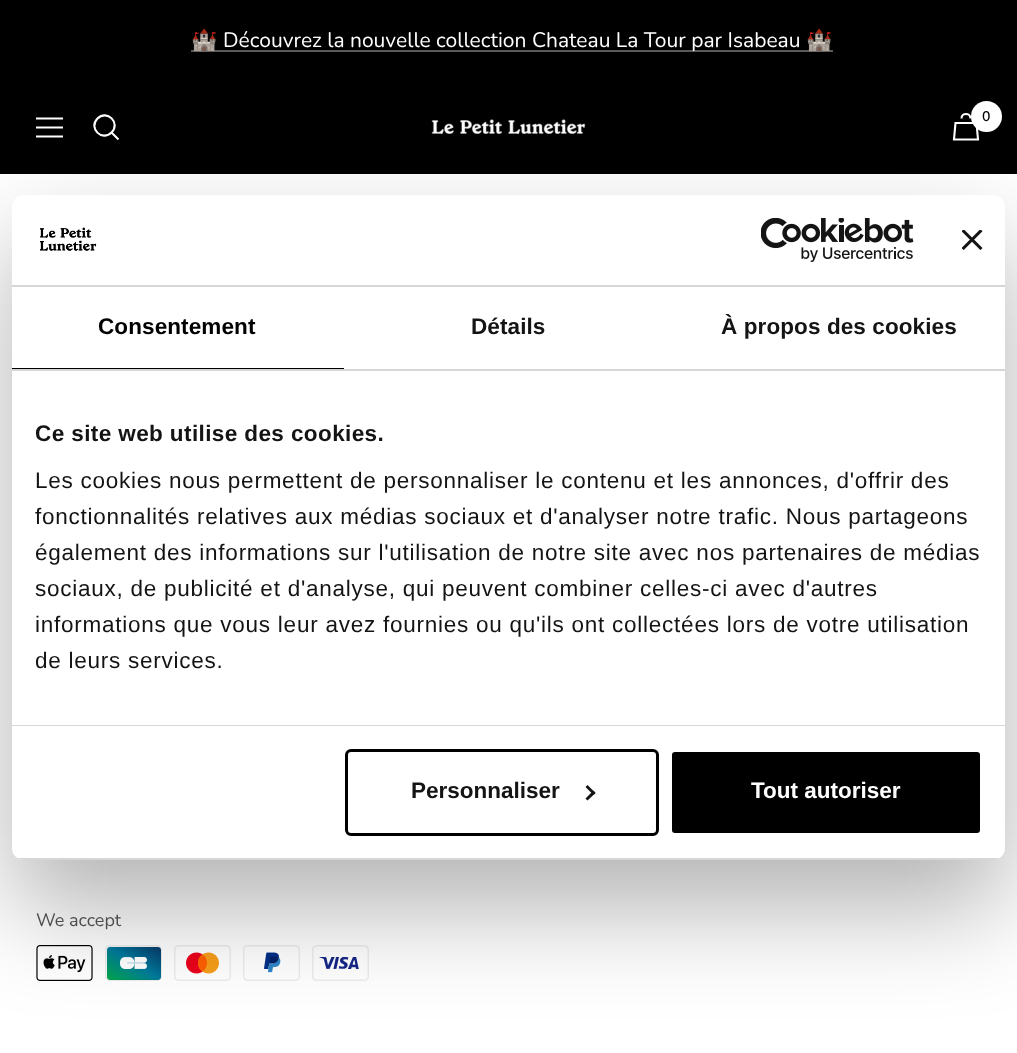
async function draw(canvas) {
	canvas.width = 1017;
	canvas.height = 1053;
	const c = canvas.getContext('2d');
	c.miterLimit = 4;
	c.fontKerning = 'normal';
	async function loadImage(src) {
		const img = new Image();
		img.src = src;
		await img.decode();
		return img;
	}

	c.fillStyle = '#fff';
	c.fillRect(0, 0, 1017, 1053);
	c.fillStyle = '#000';
	c.fillRect(0, 0, 1017, 174);
	c.fillStyle = '#595959';
	c.fillRect(191, 50, 642, 2);
	c.font = '21px Noto Color Emoji';
	c.fillStyle = '#fff';
	c.fillText('🏰', 191, 47);
	c.font = '21px Nunito';
	c.fillText('Découvrez la nouvelle collection Chateau La Tour par Isabeau', 223, 47);
	c.font = '21px Noto Color Emoji';
	c.fillText('🏰', 806, 47);
	c.beginPath();
	c.moveTo(36, 118.5);
	c.lineTo(63, 118.5);
	c.moveTo(36, 136.5);
	c.lineTo(63, 136.5);
	c.closePath();
	c.moveTo(36, 127.5);
	c.lineTo(63, 127.5);
	c.closePath();
	c.strokeStyle = '#fff';
	c.lineWidth = 2.1;
	c.stroke();
	c.beginPath();
	c.moveTo(111.5, 132.5);
	c.bezierCurveTo(121, 123, 107, 109, 97.5, 118.5);
	c.bezierCurveTo(88, 128, 102, 142, 111.5, 132.5);
	c.closePath();
	c.moveTo(111.5, 132.5);
	c.lineTo(118.5, 139.5);
	c.stroke();
	c.drawImage(await loadImage('img1.png'), 431, 119, 155, 16);
	c.beginPath();
	c.moveTo(955.5, 123);
	c.lineTo(976.5, 123);
	c.lineTo(978, 139.5);
	c.lineTo(954, 139.5);
	c.closePath();
	c.moveTo(970.5, 118.5);
	c.bezierCurveTo(970.5, 112.5, 961.5, 112.5, 961.5, 118.5);
	c.stroke();
	c.beginPath();
	c.arc(986.5, 116.5, 15.5, 0, 2 * Math.PI);
	c.fill();
	c.font = '600 14px Nunito';
	c.fillStyle = '#000';
	c.fillText('0', 982, 121);
	c.drawImage(await loadImage('img5.png'), 36, 945, 57, 36);
	c.drawImage(await loadImage('img6.png'), 105, 945, 57, 36);
	c.drawImage(await loadImage('img7.png'), 174, 945, 57, 36);
	c.drawImage(await loadImage('img8.png'), 243, 945, 57, 36);
	c.drawImage(await loadImage('img9.png'), 312, 945, 57, 36);
	c.fillStyle = '#0000004d';
	c.filter = 'blur(51px)';
	c.beginPath();
	c.roundRect(12, 243, 993, 665, 12);
	c.fill();
	c.filter = 'none';
	c.fillStyle = '#fff';
	c.beginPath();
	c.roundRect(12, 195, 993, 665, 12);
	c.fill();
	c.fillStyle = '#d6d6d6';
	c.fillRect(12, 285, 993, 2);
	c.drawImage(await loadImage('img2.png'), 39, 227, 58, 24);
	c.drawImage(await loadImage('img3.png'), 761, 218, 153, 44);
	c.drawImage(await loadImage('img4.png'), 962, 230, 21, 20);
	c.fillRect(12, 369, 993, 2);
	c.fillStyle = '#000';
	c.fillRect(12, 368, 332, 1);
	c.letterSpacing = '0.1px';
	c.font = 'bold 22.5px Liberation Sans';
	c.fillText('Consentement', 98, 334);
	c.fillStyle = '#141414';
	c.fillText('Détails', 471, 334);
	c.fillText('À propos des cookies', 721, 334);
	c.fillStyle = '#d6d6d6';
	c.fillRect(12, 725, 993, 1);
	c.letterSpacing = '0.4px';
	c.fillStyle = '#141414';
	c.fillText('Ce site web utilise des cookies.', 35, 441);
	c.letterSpacing = '0.75px';
	c.font = '22.5px Liberation Sans';
	for (const [text, x, y] of [
		['Les cookies nous permettent de personnaliser le contenu et les annonces, d\'offrir des', 35, 488],
		['fonctionnalités relatives aux médias sociaux et d\'analyser notre trafic. Nous partageons', 35, 524],
		['également des informations sur l\'utilisation de notre site avec nos partenaires de médias', 35, 560],
		['sociaux, de publicité et d\'analyse, qui peuvent combiner celles-ci avec d\'autres', 35, 596],
		['informations que vous leur avez fournies ou qu\'ils ont collectées lors de votre utilisation', 35, 632],
		['de leurs services.', 35, 668],
	]) {
		c.fillText(text, x, y);
	}
	c.save();
	c.beginPath();
	c.roundRect(12, 195, 993, 665, 12);
	c.clip();
	c.fillStyle = '#d6d6d6';
	c.fillRect(12, 858, 993, 2);
	c.restore();
	c.beginPath();
	c.roundRect(346.5, 750.5, 311, 84, 4.5);
	c.strokeStyle = '#000';
	c.lineWidth = 3;
	c.stroke();
	c.letterSpacing = '0px';
	c.font = 'bold 22.5px Liberation Sans';
	c.fillText('Personnaliser', 411, 798);
	c.beginPath();
	c.moveTo(587.5, 785);
	c.lineTo(595.5, 793);
	c.lineTo(593.5, 795);
	c.lineTo(585.5, 787);
	c.closePath();
	c.fill();
	c.beginPath();
	c.moveTo(593.5, 790.5);
	c.lineTo(595.5, 793);
	c.lineTo(587.5, 800.5);
	c.lineTo(585.5, 798.5);
	c.closePath();
	c.fill();
	c.fillStyle = '#000';
	c.beginPath();
	c.roundRect(670.5, 750.5, 311, 84, 4.5);
	c.fill();
	c.strokeStyle = '#fff';
	c.stroke();
	c.fillStyle = '#fff';
	c.fillText('Tout autoriser', 751, 798);
	c.font = '18px Nunito';
	c.fillStyle = '#4d4d4d';
	c.fillText('We accept', 36, 926);
}

draw(document.querySelector('canvas'));
